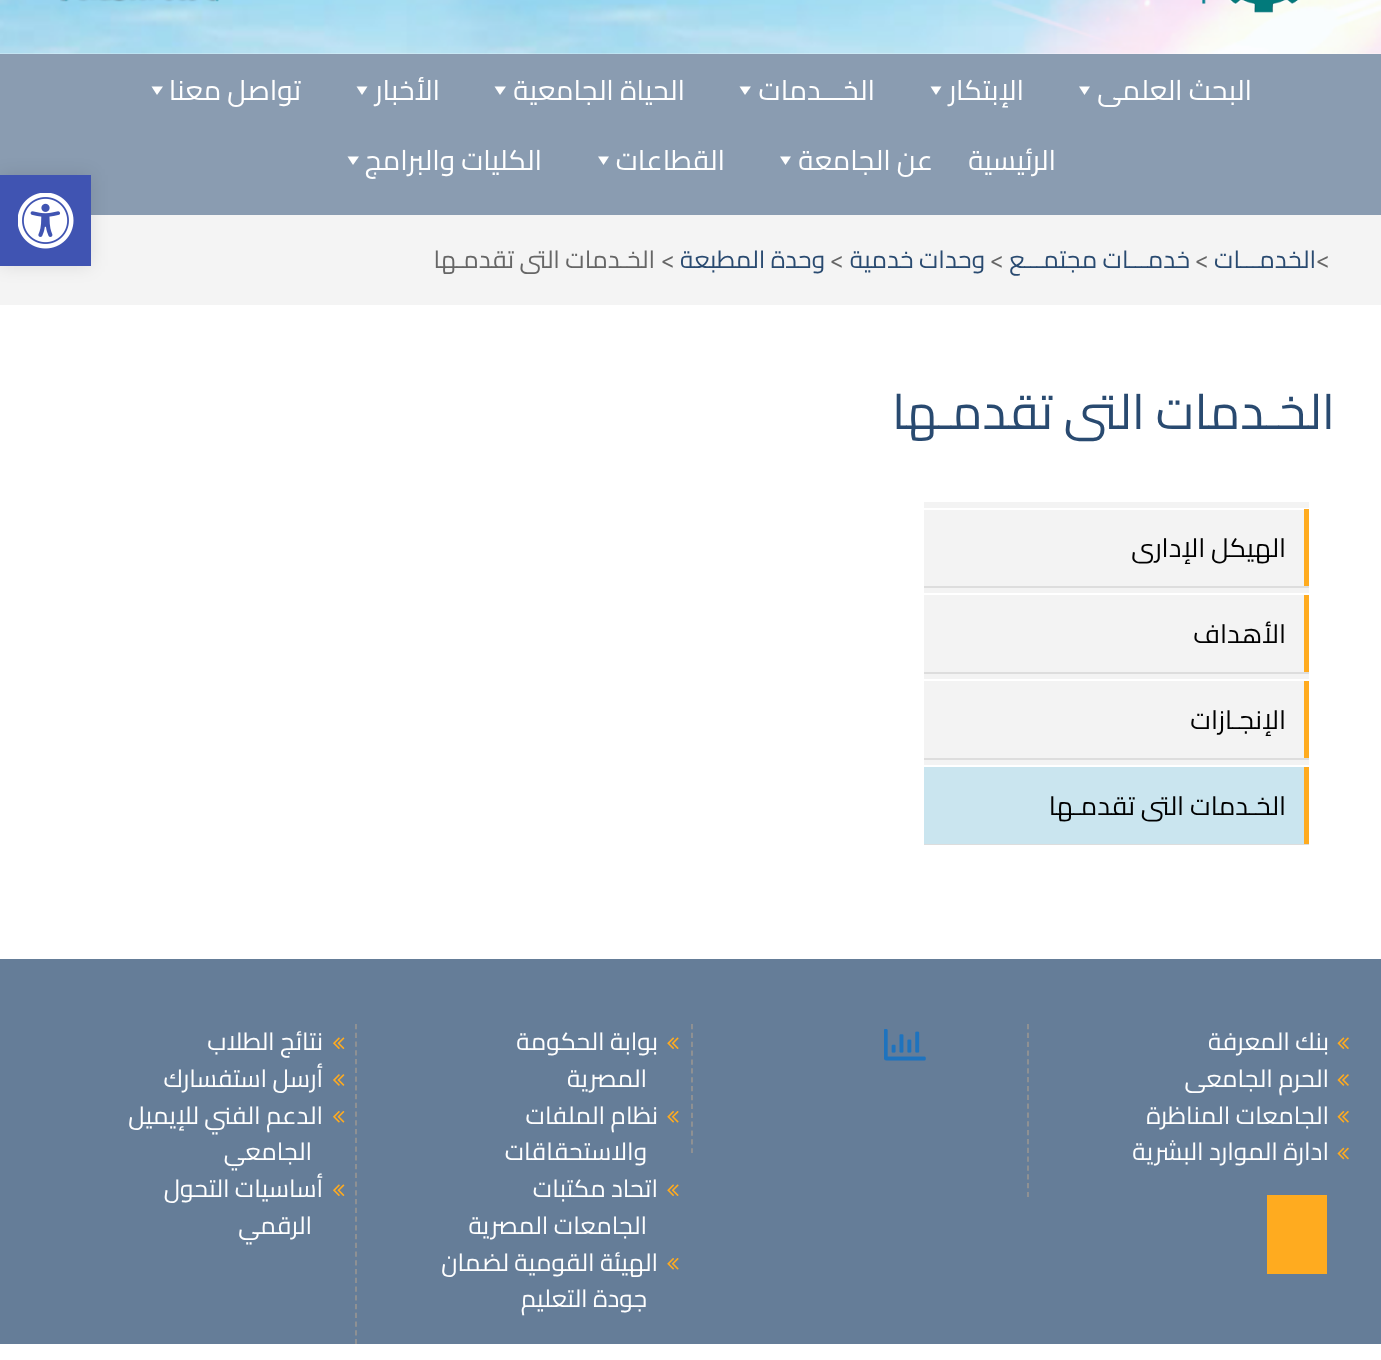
async function draw(canvas) {
	canvas.width = 1381;
	canvas.height = 1360;
	const c = canvas.getContext('2d');
	c.miterLimit = 4;
	c.fontKerning = 'normal';
	async function loadImage(src) {
		const img = new Image();
		img.src = src;
		await img.decode();
		return img;
	}

	c.fillStyle = '#fff';
	c.fillRect(0, 0, 1381, 1360);
	c.drawImage(await loadImage('img1.png'), 0, 0, 1381, 54);
	c.drawImage(await loadImage('img2.png'), 1202, 0, 97, 13);
	c.drawImage(await loadImage('img3.png'), 60, 0, 159, 2);
	c.fillStyle = '#8a9cb1';
	c.fillRect(0, 54, 1381, 161);
	c.direction = 'rtl';
	c.font = '28px Cairo';
	c.fillStyle = '#fff';
	c.fillText('البحث العلمى', 1252, 100);
	c.beginPath();
	c.moveTo(1090, 86.5);
	c.lineTo(1084.5, 95);
	c.lineTo(1079, 86.5);
	c.closePath();
	c.fill();
	c.fillText('الإبتكار', 1024, 100);
	c.beginPath();
	c.moveTo(941.5, 86.5);
	c.lineTo(936, 95);
	c.lineTo(930.5, 86.5);
	c.closePath();
	c.fill();
	c.fillText('الخـــدمات', 875, 100);
	c.beginPath();
	c.moveTo(751, 86.5);
	c.lineTo(745, 95);
	c.lineTo(739.5, 86.5);
	c.closePath();
	c.fill();
	c.fillText('الحياة الجامعية', 685, 100);
	c.beginPath();
	c.moveTo(506, 86.5);
	c.lineTo(500, 95);
	c.lineTo(494.5, 86.5);
	c.closePath();
	c.fill();
	c.fillText('الأخبار', 440, 100);
	c.beginPath();
	c.moveTo(367.5, 86.5);
	c.lineTo(362, 95);
	c.lineTo(356.5, 86.5);
	c.closePath();
	c.fill();
	c.fillText('تواصل معنا', 301, 100);
	c.beginPath();
	c.moveTo(163, 86.5);
	c.lineTo(157, 95);
	c.lineTo(151.5, 86.5);
	c.closePath();
	c.fill();
	c.fillText('الرئيسية', 1056, 170);
	c.fillText('عن الجامعة', 933, 170);
	c.beginPath();
	c.moveTo(791, 156.5);
	c.lineTo(785.5, 165);
	c.lineTo(780, 156.5);
	c.closePath();
	c.fill();
	c.fillText('القطاعات', 725, 170);
	c.beginPath();
	c.moveTo(609, 156.5);
	c.lineTo(603.5, 165);
	c.lineTo(598, 156.5);
	c.closePath();
	c.fill();
	c.fillText('الكليات والبرامج', 542, 170);
	c.beginPath();
	c.moveTo(359, 156.5);
	c.lineTo(353, 165);
	c.lineTo(347.5, 156.5);
	c.closePath();
	c.fill();
	c.fillStyle = '#f4f4f4';
	c.fillRect(0, 215, 1381, 90);
	c.direction = 'ltr';
	c.font = '24.5px Cairo';
	c.fillStyle = '#666';
	c.fillText('<', 1316, 268);
	c.direction = 'rtl';
	c.fillStyle = '#294a70';
	c.fillText('الخدمـــات', 1316, 268);
	c.direction = 'ltr';
	c.fillStyle = '#666';
	c.fillText('<', 1195, 268);
	c.direction = 'rtl';
	c.fillStyle = '#294a70';
	c.fillText('خدمـــات مجتمـــع', 1190, 268);
	c.direction = 'ltr';
	c.fillStyle = '#666';
	c.fillText('<', 990, 268);
	c.direction = 'rtl';
	c.fillStyle = '#294a70';
	c.fillText('وحدات خدمية', 985, 268);
	c.direction = 'ltr';
	c.fillStyle = '#666';
	c.fillText('<', 830, 268);
	c.direction = 'rtl';
	c.fillStyle = '#294a70';
	c.fillText('وحدة المطبعة', 825, 268);
	c.direction = 'ltr';
	c.fillStyle = '#666';
	c.fillText('<', 661, 268);
	c.direction = 'rtl';
	c.fillText('الخـدمات التى تقدمـها', 655, 268);
	c.font = '49px Cairo';
	c.fillStyle = '#294a70';
	c.fillText('الخـدمات التى تقدمـها', 1335, 429);
	for (const [x, y, w, h, color] of [
		[924, 502, 385, 263, '#f3f3f3'],
		[924, 508, 385, 2, '#fff'],
		[924, 586, 385, 2, '#ddd'],
		[1304, 509, 5, 77, '#ffab1f'],
	]) {
		c.fillStyle = color;
		c.fillRect(x, y, w, h);
	}
	c.font = '26.25px Cairo';
	c.fillStyle = '#000';
	c.fillText('الهيكل الإدارى', 1286, 557);
	for (const [x, y, w, h, color] of [
		[924, 593, 385, 2, '#fff'],
		[924, 672, 385, 2, '#ddd'],
		[1304, 595, 5, 77, '#ffab1f'],
	]) {
		c.fillStyle = color;
		c.fillRect(x, y, w, h);
	}
	c.fillStyle = '#000';
	c.fillText('الأهداف', 1286, 643);
	for (const [x, y, w, h, color] of [
		[924, 679, 385, 2, '#fff'],
		[924, 758, 385, 2, '#ddd'],
		[1304, 681, 5, 77, '#ffab1f'],
	]) {
		c.fillStyle = color;
		c.fillRect(x, y, w, h);
	}
	c.fillStyle = '#000';
	c.fillText('الإنجـازات', 1286, 729);
	for (const [x, y, w, h, color] of [
		[924, 767, 380, 77, '#cae5ef'],
		[924, 844, 385, 1, '#ddd'],
		[1304, 767, 5, 77, '#ffab1f'],
	]) {
		c.fillStyle = color;
		c.fillRect(x, y, w, h);
	}
	c.fillStyle = '#000';
	c.fillText('الخـدمات التى تقدمـها', 1286, 815);
	c.fillStyle = '#657d98';
	c.fillRect(0, 959, 1381, 385);
	c.beginPath();
	c.moveTo(1028, 1024);
	c.lineTo(1028, 1197);
	c.strokeStyle = '#939393';
	c.lineWidth = 1.8;
	c.setLineDash([5.25, 3.59]);
	c.stroke();
	c.drawImage(await loadImage('img4.png'), 1337, 1037, 12, 12);
	c.font = '24.5px Cairo';
	c.fillStyle = '#fff';
	c.fillText('بنك المعرفة', 1329, 1050);
	c.drawImage(await loadImage('img5.png'), 1337, 1074, 12, 12);
	c.fillText('الحرم الجامعى', 1329, 1087);
	c.drawImage(await loadImage('img6.png'), 1337, 1111, 12, 12);
	c.fillText('الجامعات المناظرة', 1329, 1124);
	c.drawImage(await loadImage('img7.png'), 1337, 1147, 12, 13);
	c.fillText('ادارة الموارد البشرية', 1329, 1160);
	c.beginPath();
	c.moveTo(692, 1024);
	c.lineTo(692, 1153);
	c.setLineDash([5.25, 3.62]);
	c.stroke();
	c.drawImage(await loadImage('img8.png'), 884, 1029, 42, 32);
	c.beginPath();
	c.moveTo(356, 1024);
	c.lineTo(356, 1344);
	c.setLineDash([5.25, 3.5]);
	c.stroke();
	c.drawImage(await loadImage('img9.png'), 667, 1037, 12, 12);
	c.fillText('بوابة الحكومة', 658, 1050);
	c.fillText('المصرية', 647, 1087);
	c.drawImage(await loadImage('img10.png'), 667, 1111, 12, 12);
	c.fillText('نظام الملفات', 658, 1124);
	c.fillText('والاستحقاقات', 647, 1160);
	c.drawImage(await loadImage('img9.png'), 667, 1184, 12, 12);
	c.fillText('اتحاد مكتبات', 658, 1197);
	c.fillText('الجامعات المصرية', 647, 1234);
	c.drawImage(await loadImage('img10.png'), 667, 1258, 12, 12);
	c.fillText('الهيئة القومية لضمان', 658, 1271);
	c.fillText('جودة التعليم', 647, 1307);
	c.drawImage(await loadImage('img11.png'), 333, 1037, 12, 12);
	c.fillText('نتائج الطلاب', 323, 1050);
	c.drawImage(await loadImage('img12.png'), 333, 1074, 12, 12);
	c.fillText('أرسل استفسارك', 323, 1087);
	c.drawImage(await loadImage('img13.png'), 333, 1111, 12, 12);
	c.fillText('الدعم الفني للإيميل', 323, 1124);
	c.fillText('الجامعي', 312, 1160);
	c.drawImage(await loadImage('img11.png'), 333, 1184, 12, 12);
	c.fillText('أساسيات التحول', 323, 1197);
	c.fillText('الرقمي', 312, 1234);
	c.fillStyle = '#0000001a';
	c.filter = 'blur(9px)';
	c.beginPath();
	c.rect(0, 175, 91, 91);
	c.fill();
	c.filter = 'none';
	c.fillStyle = '#4054b2';
	c.fillRect(0, 175, 91, 91);
	c.drawImage(await loadImage('img14.png'), 18, 193, 56, 56);
	c.fillStyle = '#ffab1f';
	c.fillRect(1267, 1195, 60, 79);
}

draw(document.querySelector('canvas'));
